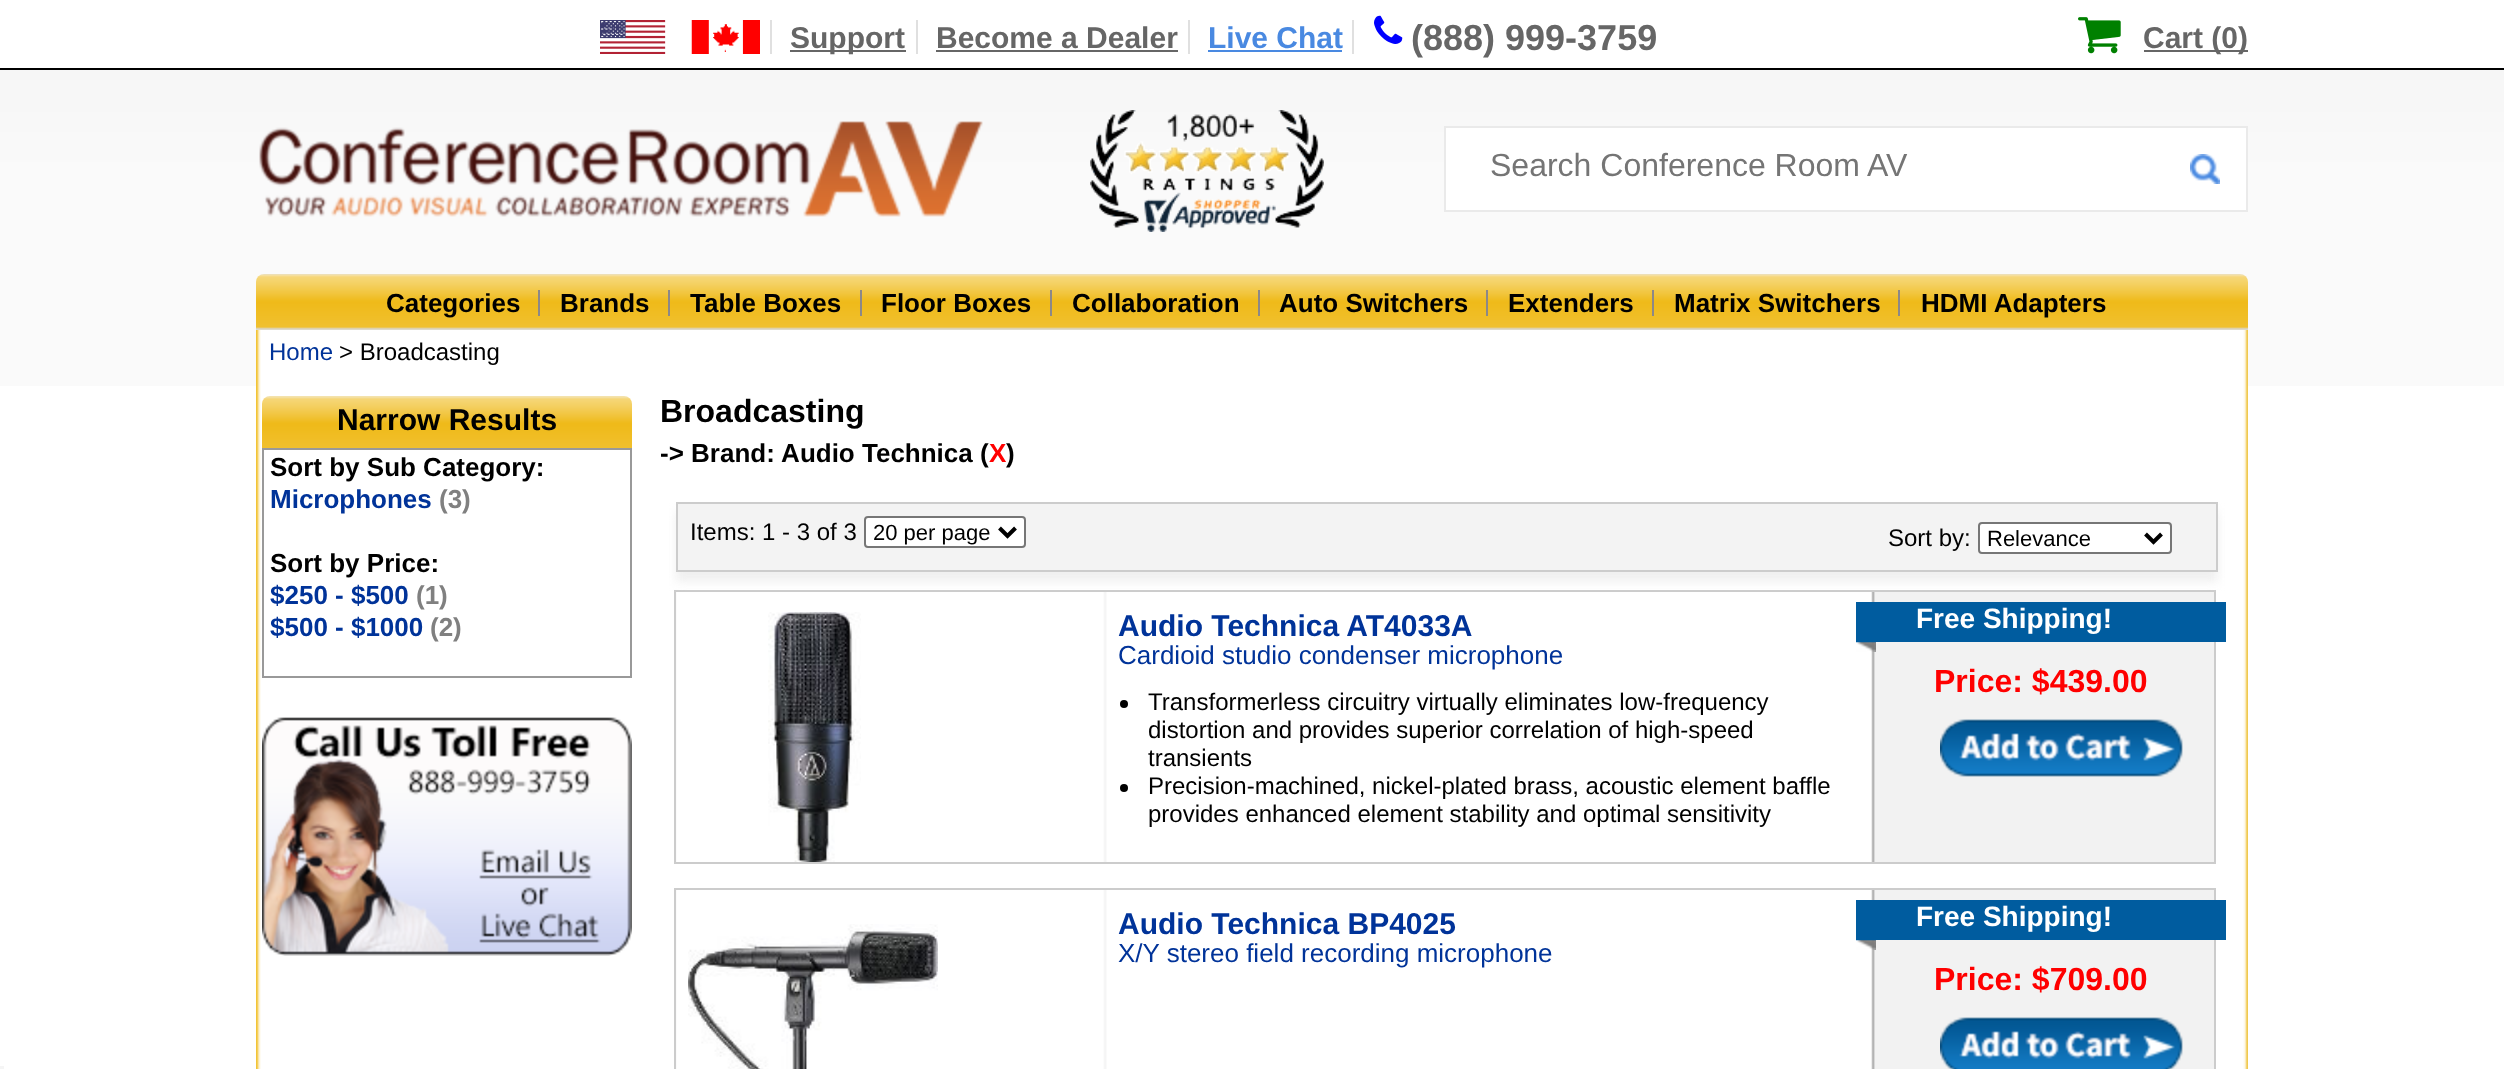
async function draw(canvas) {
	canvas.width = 2504;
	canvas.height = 1069;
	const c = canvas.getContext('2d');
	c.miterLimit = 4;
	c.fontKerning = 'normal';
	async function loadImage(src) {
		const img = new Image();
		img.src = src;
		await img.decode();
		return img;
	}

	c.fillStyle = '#fff';
	c.fillRect(0, 0, 2504, 1069);
	c.drawImage(await loadImage('img1.png'), 0, 70, 2504, 316);
	c.fillStyle = '#000';
	c.fillRect(0, 68, 2504, 2);
	c.fillStyle = '#e0e0e0';
	c.fillRect(770, 20, 2, 34);
	c.drawImage(await loadImage('img2.png'), 600, 20, 160, 34);
	c.fillStyle = '#666';
	c.fillRect(790, 50, 116, 2);
	c.font = 'bold 30px Liberation Sans';
	c.fillText('Support', 790, 48);
	c.fillStyle = '#e0e0e0';
	c.fillRect(916, 20, 2, 34);
	c.fillStyle = '#666';
	c.fillText('Become a Dealer', 936, 48);
	c.fillStyle = '#e0e0e0';
	c.fillRect(1188, 20, 2, 34);
	c.fillStyle = '#666';
	c.fillRect(936, 50, 242, 2);
	c.fillStyle = '#4989e1';
	c.fillText('Live Chat', 1208, 48);
	c.fillStyle = '#e0e0e0';
	c.fillRect(1352, 20, 2, 34);
	c.fillStyle = '#4989e1';
	c.fillRect(1208, 50, 134, 2);
	c.drawImage(await loadImage('img3.png'), 1374, 15, 29, 29);
	c.font = 'bold 36px Liberation Sans';
	c.fillStyle = '#666';
	c.fillText('(888) 999-3759', 1411, 50);
	c.drawImage(await loadImage('img4.png'), 2078, 17, 43, 37);
	c.fillRect(2144, 50, 104, 2);
	c.font = 'bold 30px Liberation Sans';
	c.fillText('Cart (0)', 2143, 48);
	c.drawImage(await loadImage('img5.png'), 259, 121, 724, 96);
	c.drawImage(await loadImage('img6.png'), 1090, 110, 234, 122);
	c.fillStyle = '#fff';
	c.beginPath();
	c.rect(1445, 127, 802, 84);
	c.fill();
	c.strokeStyle = '#eaeaea';
	c.lineWidth = 2;
	c.stroke();
	c.font = '32px Liberation Sans';
	c.fillStyle = '#757575';
	c.fillText('Search Conference Room AV', 1490, 176);
	c.drawImage(await loadImage('img7.png'), 2190, 154, 30, 30);
	c.drawImage(await loadImage('img8.png'), 256, 274, 1992, 56);
	c.fillStyle = '#8c8888';
	c.fillRect(538, 290, 2, 26);
	c.font = 'bold 26px Liberation Sans';
	c.fillStyle = '#000';
	c.fillText('Categories', 386, 312);
	c.fillStyle = '#8c8888';
	c.fillRect(668, 290, 2, 26);
	c.fillStyle = '#000';
	c.fillText('Brands', 560, 312);
	c.fillStyle = '#8c8888';
	c.fillRect(860, 290, 2, 26);
	c.fillStyle = '#000';
	c.fillText('Table Boxes', 690, 312);
	c.fillStyle = '#8c8888';
	c.fillRect(1050, 290, 2, 26);
	c.fillStyle = '#000';
	c.fillText('Floor Boxes', 881, 312);
	c.fillStyle = '#8c8888';
	c.fillRect(1258, 290, 2, 26);
	c.fillStyle = '#000';
	c.fillText('Collaboration', 1072, 312);
	c.fillStyle = '#8c8888';
	c.fillRect(1486, 290, 2, 26);
	c.fillStyle = '#000';
	c.fillText('Auto Switchers', 1279, 312);
	c.fillStyle = '#8c8888';
	c.fillRect(1652, 290, 2, 26);
	c.fillStyle = '#000';
	c.fillText('Extenders', 1508, 312);
	c.fillStyle = '#8c8888';
	c.fillRect(1898, 290, 2, 26);
	c.fillStyle = '#000';
	c.fillText('Matrix Switchers', 1674, 312);
	c.fillText('HDMI Adapters', 1921, 312);
	c.drawImage(await loadImage('img9.png'), 256, 330, 1992, 739);
	c.font = '24px Liberation Sans';
	c.fillStyle = '#039';
	c.fillText('Home', 269, 360);
	c.fillStyle = '#000';
	c.fillText('> Broadcasting', 339, 360);
	c.drawImage(await loadImage('img10.png'), 262, 396, 370, 52);
	c.font = 'bold 30px Liberation Sans';
	c.fillText('Narrow Results', 337, 430);
	c.strokeStyle = '#999';
	c.strokeRect(263, 449, 368, 228);
	c.font = 'bold 26px Liberation Sans';
	c.fillText('Sort by Sub Category:', 270, 476);
	c.fillStyle = '#039';
	c.fillText('Microphones', 270, 508);
	c.fillStyle = '#808080';
	c.fillText('(3)', 439, 508);
	c.fillStyle = '#000';
	c.fillText('Sort by Price:', 270, 572);
	c.fillStyle = '#039';
	c.fillText('$250 - $500', 270, 604);
	c.fillStyle = '#808080';
	c.fillText('(1)', 416, 604);
	c.fillStyle = '#039';
	c.fillText('$500 - $1000', 270, 636);
	c.fillStyle = '#808080';
	c.fillText('(2)', 430, 636);
	c.drawImage(await loadImage('img11.png'), 262, 717, 370, 239);
	c.font = 'bold 32px Liberation Sans';
	c.fillStyle = '#000';
	c.fillText('Broadcasting', 660, 422);
	c.font = 'bold 26px Liberation Sans';
	c.fillText('-> Brand: Audio Technica (', 660, 462);
	c.fillStyle = '#f00';
	c.fillText('X', 989, 462);
	c.fillStyle = '#000';
	c.fillText(')', 1006, 462);
	c.drawImage(await loadImage('img12.png'), 676, 592, 1538, 270);
	c.strokeStyle = '#ccc';
	c.strokeRect(675, 591, 1540, 272);
	c.fillStyle = '#f0f0f0';
	c.filter = 'blur(5px)';
	c.beginPath();
	c.rect(676, 512, 1542, 70);
	c.fill();
	c.filter = 'none';
	c.fillStyle = '#f3f3f3';
	c.beginPath();
	c.rect(677, 503, 1540, 68);
	c.fill();
	c.stroke();
	c.font = '24px Liberation Sans';
	c.fillStyle = '#000';
	c.fillText('Items: 1 - 3 of 3', 690, 540);
	c.fillStyle = '#fff';
	c.beginPath();
	c.roundRect(865, 517, 160, 30, 3);
	c.fill();
	c.strokeStyle = '#767676';
	c.stroke();
	c.beginPath();
	c.moveTo(999.5, 528);
	c.lineTo(1007.5, 536);
	c.lineTo(1015.5, 528);
	c.strokeStyle = '#000';
	c.lineWidth = 4;
	c.stroke();
	c.font = '22px Liberation Sans';
	c.fillStyle = '#000';
	c.fillText('20 per page', 873, 540);
	c.font = '24px Liberation Sans';
	c.fillText('Sort by:', 1888, 546);
	c.fillStyle = '#fff';
	c.beginPath();
	c.roundRect(1979, 523, 192, 30, 3);
	c.fill();
	c.strokeStyle = '#767676';
	c.lineWidth = 2;
	c.stroke();
	c.beginPath();
	c.moveTo(2145.5, 534);
	c.lineTo(2153.5, 542);
	c.lineTo(2161.5, 534);
	c.strokeStyle = '#000';
	c.lineWidth = 4;
	c.stroke();
	c.font = '22px Liberation Sans';
	c.fillStyle = '#000';
	c.fillText('Relevance', 1987, 546);
	c.drawImage(await loadImage('img13.png'), 768, 612, 93, 250);
	c.font = 'bold 30px Liberation Sans';
	c.fillStyle = '#039';
	c.fillText('Audio Technica AT4033A', 1118, 636);
	c.font = '26px Liberation Sans';
	c.fillText('Cardioid studio condenser microphone', 1118, 664);
	c.fillStyle = '#000';
	c.beginPath();
	c.arc(1124, 704, 4, 0, 2 * Math.PI);
	c.fill();
	c.font = '24px Liberation Sans';
	for (const [text, x, y] of [
		['Transformerless circuitry virtually eliminates low-frequency', 1148, 710],
		['distortion and provides superior correlation of high-speed', 1148, 738],
		['transients', 1148, 766],
	]) {
		c.fillText(text, x, y);
	}
	c.beginPath();
	c.arc(1124, 788, 4, 0, 2 * Math.PI);
	c.fill();
	c.fillText('Precision-machined, nickel-plated brass, acoustic element baffle', 1148, 794);
	c.fillText('provides enhanced element stability and optimal sensitivity', 1148, 822);
	c.drawImage(await loadImage('img14.png'), 1856, 642, 20, 10);
	c.fillStyle = '#005c9f';
	c.fillRect(1856, 602, 370, 40);
	c.font = 'bold 28px Liberation Sans';
	c.fillStyle = '#fff';
	c.fillText('Free Shipping!', 1916, 628);
	c.font = 'bold 32px Liberation Sans';
	c.fillStyle = '#f00';
	c.fillText('Price: $439.00', 1934, 692);
	c.drawImage(await loadImage('img15.png'), 1940, 719, 243, 58);
	c.drawImage(await loadImage('img16.png'), 676, 890, 1538, 179);
	c.strokeStyle = '#ccc';
	c.lineWidth = 2;
	c.strokeRect(675, 889, 1540, 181);
	c.drawImage(await loadImage('img17.png'), 688, 924, 250, 145);
	c.font = 'bold 30px Liberation Sans';
	c.fillStyle = '#039';
	c.fillText('Audio Technica BP4025', 1118, 934);
	c.font = '26px Liberation Sans';
	c.fillText('X/Y stereo field recording microphone', 1118, 962);
	c.drawImage(await loadImage('img14.png'), 1856, 940, 20, 10);
	c.fillStyle = '#005c9f';
	c.fillRect(1856, 900, 370, 40);
	c.font = 'bold 28px Liberation Sans';
	c.fillStyle = '#fff';
	c.fillText('Free Shipping!', 1916, 926);
	c.font = 'bold 32px Liberation Sans';
	c.fillStyle = '#f00';
	c.fillText('Price: $709.00', 1934, 990);
	c.drawImage(await loadImage('img18.png'), 1940, 1017, 243, 52);
	c.fillStyle = '#f5f5f5';
	c.fillRect(0, 1066, 4, 3);
}

draw(document.querySelector('canvas'));
